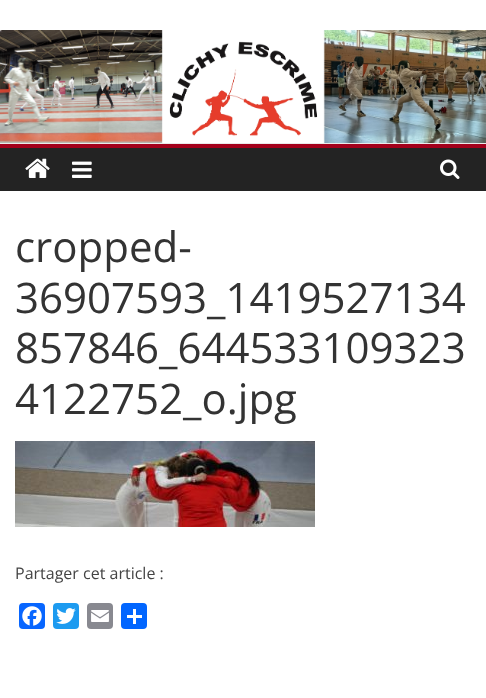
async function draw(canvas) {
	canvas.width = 486;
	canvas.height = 698;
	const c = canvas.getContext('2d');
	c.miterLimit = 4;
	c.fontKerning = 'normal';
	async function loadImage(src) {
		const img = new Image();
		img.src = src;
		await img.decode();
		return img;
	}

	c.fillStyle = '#fff';
	c.fillRect(0, 0, 486, 698);
	c.drawImage(await loadImage('img1.png'), 0, 30, 486, 113);
	for (const [x, y, w, h, color] of [
		[0, 143, 486, 1, '#eaeaea'],
		[0, 148, 486, 43, '#232323'],
		[0, 144, 486, 4, '#a3001b'],
	]) {
		c.fillStyle = color;
		c.fillRect(x, y, w, h);
	}
	c.drawImage(await loadImage('img2.png'), 25, 158, 25, 20);
	c.drawImage(await loadImage('img3.png'), 72, 161, 20, 17);
	c.drawImage(await loadImage('img4.png'), 440, 159, 20, 20);
	c.font = '42px Open Sans';
	c.fillStyle = '#333';
	for (const [text, x, y] of [
		['cropped-', 15, 262],
		['36907593_1419527134', 15, 313],
		['857846_644533109323', 15, 363],
		['4122752_o.jpg', 15, 414],
	]) {
		c.fillText(text, x, y);
	}
	c.drawImage(await loadImage('img5.png'), 15, 441, 300, 86);
	c.font = '16px Open Sans';
	c.fillStyle = '#444';
	c.fillText('Partager cet article :', 15, 579);
	c.fillStyle = '#0866ff';
	c.beginPath();
	c.roundRect(19, 603, 26, 26, 4);
	c.fill();
	c.drawImage(await loadImage('img6.png'), 22, 606, 20, 20);
	c.fillStyle = '#1d9bf0';
	c.beginPath();
	c.roundRect(53, 603, 26, 26, 4);
	c.fill();
	c.drawImage(await loadImage('img7.png'), 56, 608, 20, 16);
	c.fillStyle = '#888990';
	c.beginPath();
	c.roundRect(87, 603, 26, 26, 4);
	c.fill();
	c.drawImage(await loadImage('img8.png'), 91, 610, 18, 12);
	c.fillStyle = '#0166ff';
	c.beginPath();
	c.roundRect(121, 603, 26, 26, 4);
	c.fill();
	c.fillStyle = '#fff';
	c.fillRect(133, 609, 3, 15);
	c.fillRect(127, 615, 15, 3);
}

draw(document.querySelector('canvas'));
